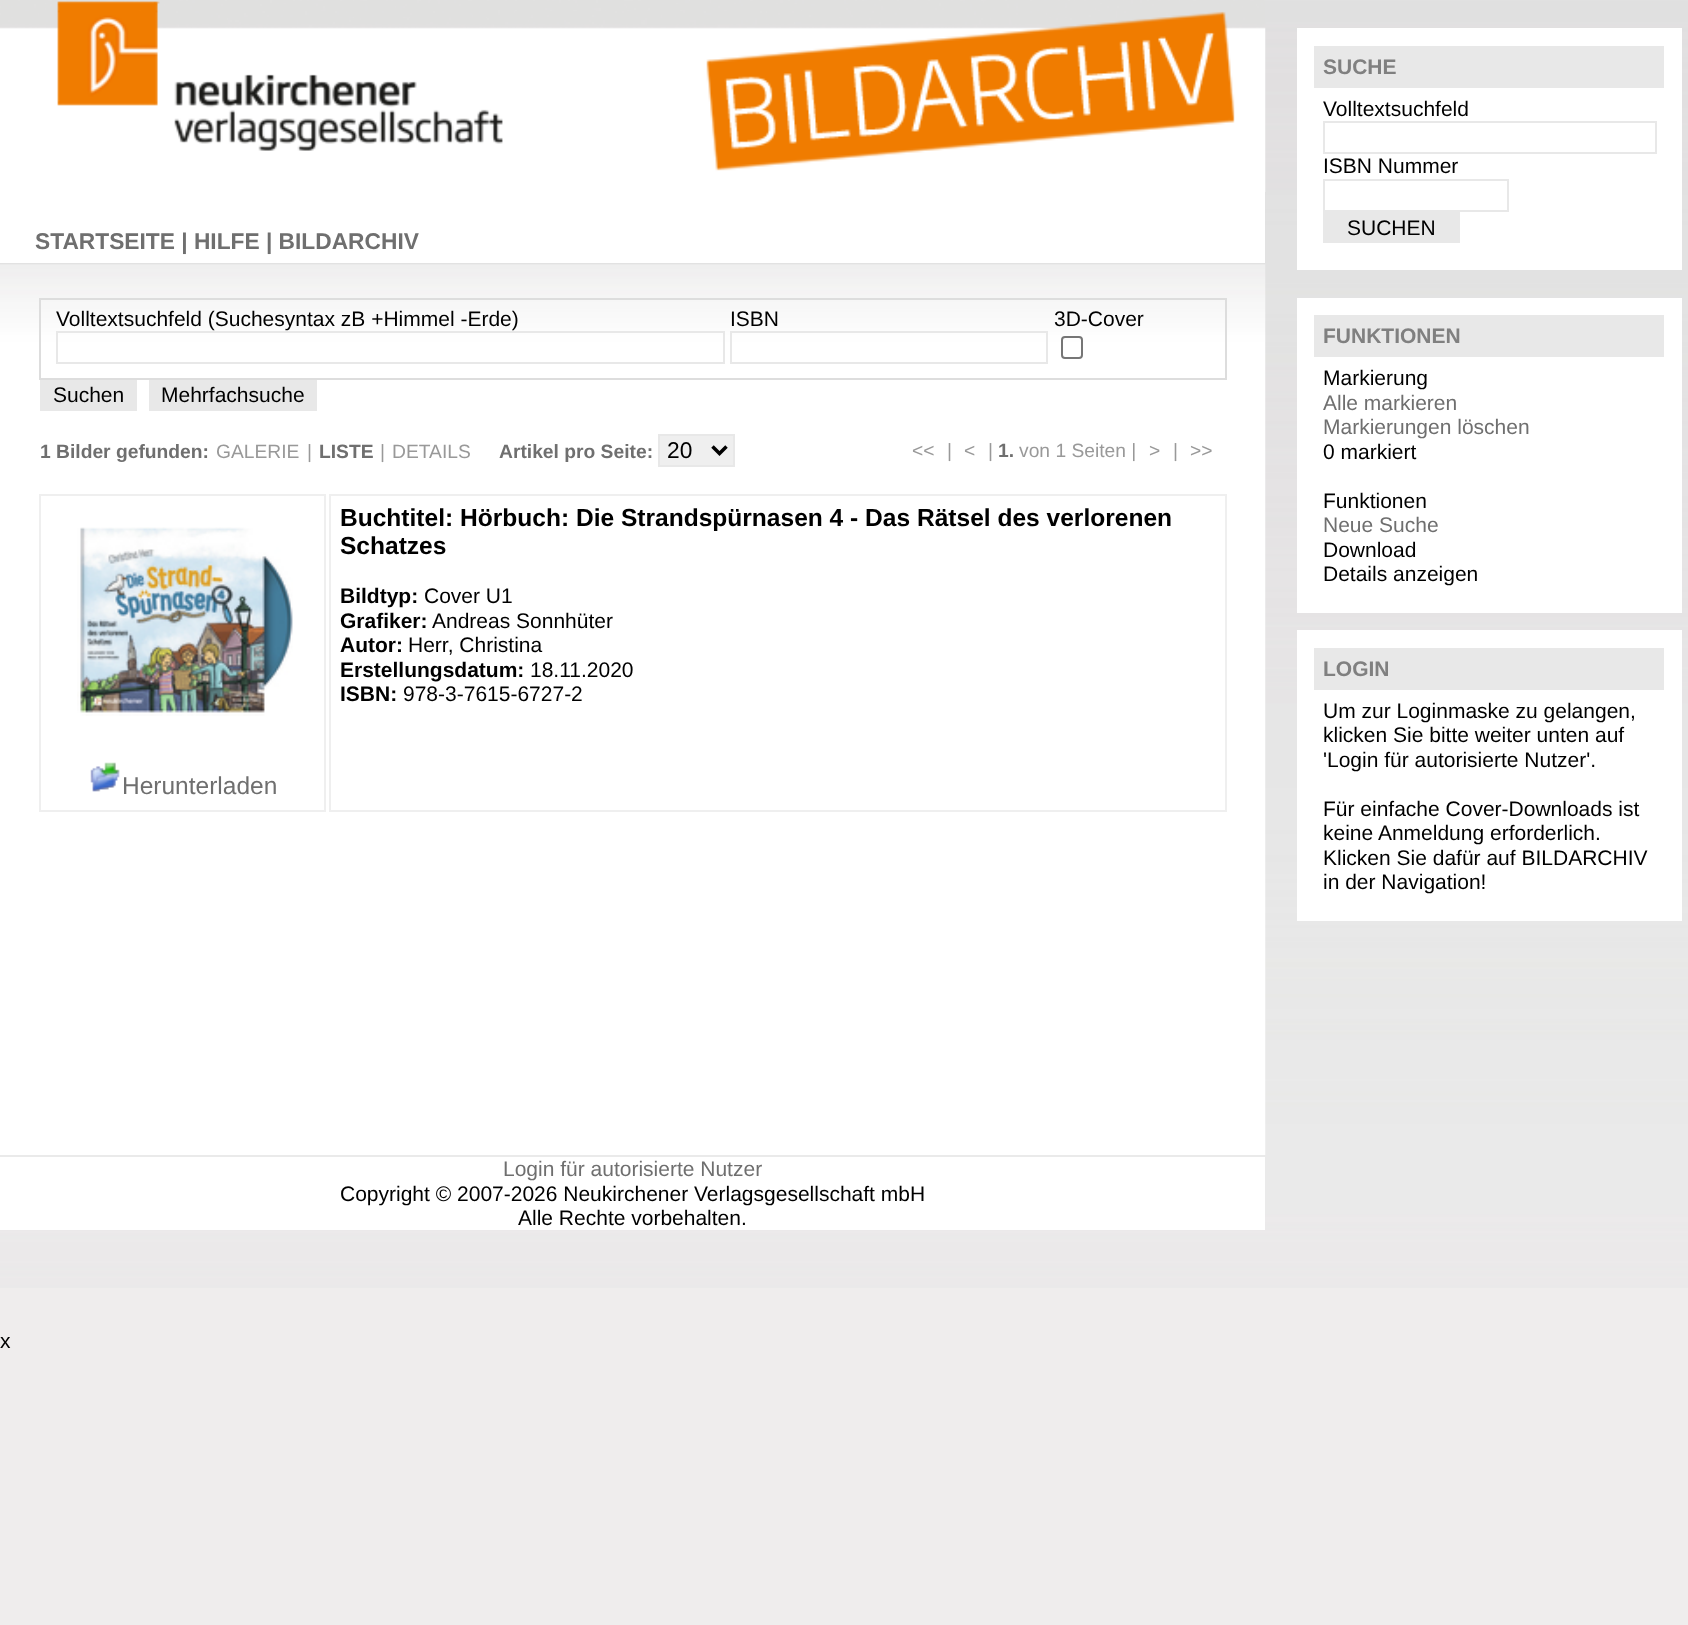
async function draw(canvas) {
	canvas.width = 1688;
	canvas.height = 1625;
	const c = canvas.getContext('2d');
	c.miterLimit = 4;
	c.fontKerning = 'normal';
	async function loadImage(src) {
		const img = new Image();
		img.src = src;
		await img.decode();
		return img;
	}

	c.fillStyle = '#efeded';
	c.fillRect(0, 0, 1688, 1625);
	c.drawImage(await loadImage('img1.png'), 0, 0, 1688, 1288);
	c.fillStyle = '#fff';
	c.fillRect(1297, 28, 385, 242);
	c.fillStyle = '#e8e8e8';
	c.fillRect(1314, 46, 350, 42);
	c.font = 'bold 21px Liberation Sans';
	c.fillStyle = '#808080';
	c.fillText('SUCHE', 1323, 74);
	c.font = '21px Liberation Sans';
	c.fillStyle = '#000';
	c.fillText('Volltextsuchfeld', 1323, 116);
	c.strokeStyle = '#e8e8e8';
	c.lineWidth = 2;
	c.strokeRect(1324, 122, 332, 31);
	c.fillText('ISBN Nummer', 1323, 173);
	c.strokeRect(1324, 180, 184, 31);
	c.fillStyle = '#e8e8e8';
	c.fillRect(1323, 212, 137, 31);
	c.fillStyle = '#000';
	c.fillText('SUCHEN', 1347, 235);
	c.fillStyle = '#fff';
	c.fillRect(0, 192, 1265, 71);
	c.drawImage(await loadImage('img2.png'), 0, 0, 1266, 192);
	c.font = 'bold 22.75px Liberation Sans';
	c.fillStyle = '#6f6f6f';
	c.fillText('STARTSEITE | HILFE | BILDARCHIV', 35, 249);
	c.drawImage(await loadImage('img3.png'), 0, 263, 1266, 892);
	c.strokeStyle = '#ddd';
	c.strokeRect(40, 299, 1186, 80);
	c.font = '21px Liberation Sans';
	c.fillStyle = '#000';
	c.fillText('Volltextsuchfeld (Suchesyntax zB +Himmel -Erde)', 56, 326);
	c.strokeStyle = '#e8e8e8';
	c.strokeRect(57, 332, 667, 31);
	c.fillText('ISBN', 730, 326);
	c.strokeRect(731, 332, 316, 31);
	c.fillText('3D-Cover', 1054, 326);
	c.beginPath();
	c.roundRect(1062, 337, 20, 21, 3);
	c.strokeStyle = '#767676';
	c.stroke();
	c.fillStyle = '#e8e8e8';
	c.fillRect(40, 380, 97, 31);
	c.fillStyle = '#000';
	c.fillText('Suchen', 53, 402);
	c.fillStyle = '#e8e8e8';
	c.fillRect(149, 380, 168, 31);
	c.fillStyle = '#000';
	c.fillText('Mehrfachsuche', 161, 402);
	c.font = 'bold 19.25px Liberation Sans';
	c.fillStyle = '#6f6f6f';
	c.fillText('1 Bilder gefunden:', 40, 458);
	c.font = '19.25px Liberation Sans';
	c.fillStyle = '#999';
	c.fillText('GALERIE', 216, 458);
	c.fillText('|', 307, 458);
	c.font = 'bold 19.25px Liberation Sans';
	c.fillStyle = '#6f6f6f';
	c.fillText('LISTE', 319, 458);
	c.font = '19.25px Liberation Sans';
	c.fillStyle = '#999';
	c.fillText('|', 380, 458);
	c.fillText('DETAILS', 392, 458);
	c.font = 'bold 19.25px Liberation Sans';
	c.fillStyle = '#6f6f6f';
	c.fillText('Artikel pro Seite:', 499, 458);
	c.fillStyle = '#efefef';
	c.beginPath();
	c.rect(659, 435, 75, 31);
	c.fill();
	c.strokeStyle = '#e8e8e8';
	c.stroke();
	c.beginPath();
	c.moveTo(712.5, 446.5);
	c.lineTo(719.5, 453.5);
	c.lineTo(726.5, 446.5);
	c.strokeStyle = '#000';
	c.lineWidth = 3.5;
	c.stroke();
	c.font = '22.75px Liberation Sans';
	c.fillStyle = '#000';
	c.fillText('20', 667, 458);
	c.font = '19.25px Liberation Sans';
	c.fillStyle = '#999';
	for (const [text, x, y] of [
		['<<', 912, 457],
		['|', 947, 457],
		['<', 964, 457],
		['|', 988, 457],
	]) {
		c.fillText(text, x, y);
	}
	c.font = 'bold 19.25px Liberation Sans';
	c.fillStyle = '#6f6f6f';
	c.fillText('1.', 998, 457);
	c.font = '19.25px Liberation Sans';
	c.fillStyle = '#999';
	for (const [text, x, y] of [
		['von 1 Seiten |', 1019, 457],
		['>', 1149, 457],
		['|', 1173, 457],
		['>>', 1190, 457],
	]) {
		c.fillText(text, x, y);
	}
	c.strokeStyle = '#efefef';
	c.lineWidth = 2;
	c.strokeRect(330, 495, 896, 316);
	c.font = 'bold 24.55px Liberation Sans';
	c.fillStyle = '#000';
	c.fillText('Buchtitel: Hörbuch: Die Strandspürnasen 4 - Das Rätsel des verlorenen', 340, 526);
	c.fillText('Schatzes', 340, 554);
	c.font = 'bold 21px Liberation Sans';
	c.fillText('Bildtyp:', 340, 603);
	c.font = '21px Liberation Sans';
	c.fillText('Cover U1', 424, 603);
	c.font = 'bold 21px Liberation Sans';
	c.fillText('Grafiker:', 340, 628);
	c.font = '21px Liberation Sans';
	c.fillText('Andreas Sonnhüter', 432, 628);
	c.font = 'bold 21px Liberation Sans';
	c.fillText('Autor:', 340, 652);
	c.font = '21px Liberation Sans';
	c.fillText('Herr, Christina', 408, 652);
	c.font = 'bold 21px Liberation Sans';
	c.fillText('Erstellungsdatum:', 340, 677);
	c.font = '21px Liberation Sans';
	c.fillText('18.11.2020', 530, 677);
	c.font = 'bold 21px Liberation Sans';
	c.fillText('ISBN:', 340, 701);
	c.font = '21px Liberation Sans';
	c.fillText('978-3-7615-6727-2', 403, 701);
	c.strokeRect(40, 495, 285, 316);
	c.drawImage(await loadImage('img4.png'), 77, 527, 216, 189);
	c.drawImage(await loadImage('img5.png'), 90, 762, 30, 30);
	c.font = '24.5px Liberation Sans';
	c.fillStyle = '#6f6f6f';
	c.fillText('Herunterladen', 122, 794);
	c.fillStyle = '#fff';
	c.fillRect(1297, 298, 385, 315);
	c.fillStyle = '#e8e8e8';
	c.fillRect(1314, 315, 350, 42);
	c.font = 'bold 21px Liberation Sans';
	c.fillStyle = '#808080';
	c.fillText('FUNKTIONEN', 1323, 343);
	c.font = '21px Liberation Sans';
	c.fillStyle = '#000';
	c.fillText('Markierung', 1323, 385);
	c.fillStyle = '#6f6f6f';
	c.fillText('Alle markieren', 1323, 410);
	c.fillText('Markierungen löschen', 1323, 434);
	c.fillStyle = '#000';
	c.fillText('0 markiert', 1323, 459);
	c.fillText('Funktionen', 1323, 508);
	c.fillStyle = '#6f6f6f';
	c.fillText('Neue Suche', 1323, 532);
	c.fillStyle = '#000';
	c.fillText('Download', 1323, 557);
	c.fillText('Details anzeigen', 1323, 581);
	c.fillStyle = '#fff';
	c.fillRect(1297, 630, 385, 291);
	c.fillStyle = '#e8e8e8';
	c.fillRect(1314, 648, 350, 42);
	c.font = 'bold 21px Liberation Sans';
	c.fillStyle = '#808080';
	c.fillText('LOGIN', 1323, 676);
	c.font = '21px Liberation Sans';
	c.fillStyle = '#000';
	for (const [text, x, y] of [
		['Um zur Loginmaske zu gelangen,', 1323, 718],
		['klicken Sie bitte weiter unten auf', 1323, 742],
		['\'Login für autorisierte Nutzer\'.', 1323, 767],
		['Für einfache Cover-Downloads ist', 1323, 816],
		['keine Anmeldung erforderlich.', 1323, 840],
		['Klicken Sie dafür auf BILDARCHIV', 1323, 865],
		['in der Navigation!', 1323, 889],
	]) {
		c.fillText(text, x, y);
	}
	c.fillStyle = '#fff';
	c.fillRect(0, 1157, 1265, 73);
	c.fillStyle = '#6f6f6f';
	c.fillText('Login für autorisierte Nutzer', 503, 1176);
	c.fillStyle = '#000';
	for (const [text, x, y] of [
		['Copyright © 2007-2026 Neukirchener Verlagsgesellschaft mbH', 340, 1201],
		['Alle Rechte vorbehalten.', 518, 1225],
		['x', 0, 1348],
	]) {
		c.fillText(text, x, y);
	}
}

draw(document.querySelector('canvas'));
